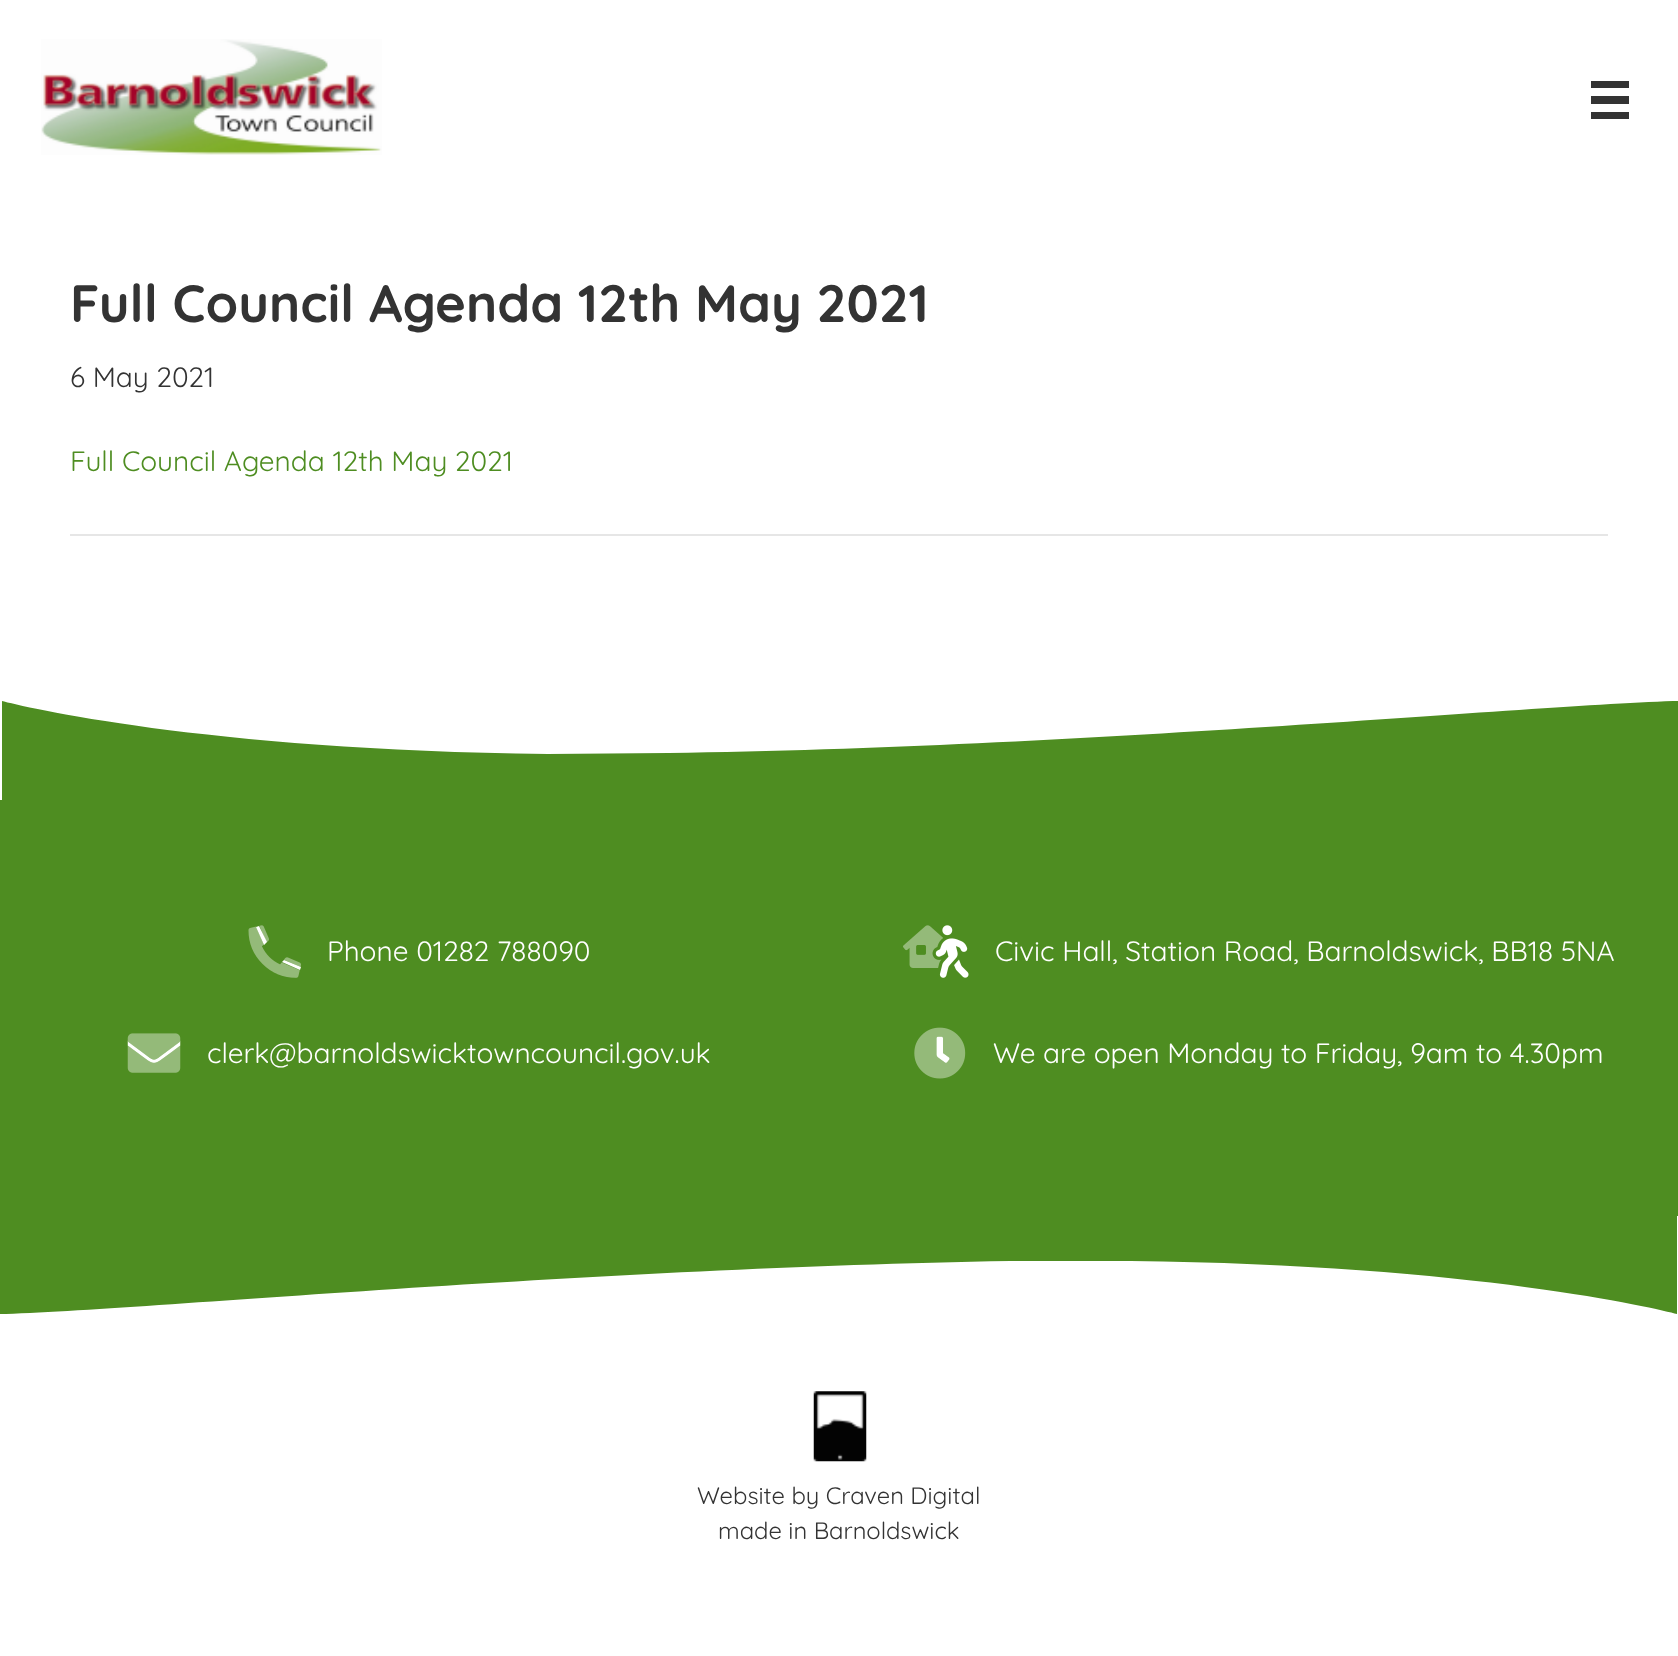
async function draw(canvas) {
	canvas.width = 1678;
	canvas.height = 1656;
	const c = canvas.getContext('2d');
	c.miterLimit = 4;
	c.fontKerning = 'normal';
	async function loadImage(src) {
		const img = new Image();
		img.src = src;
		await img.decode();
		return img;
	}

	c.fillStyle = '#fff';
	c.fillRect(0, 0, 1678, 1656);
	c.drawImage(await loadImage('img1.png'), 41, 39, 341, 116);
	for (const [x, y, w, h, color] of [
		[1591, 81, 38, 7, '#333'],
		[1591, 96, 38, 8, '#333'],
		[1591, 112, 38, 7, '#333'],
	]) {
		c.fillStyle = color;
		c.fillRect(x, y, w, h);
	}
	c.font = 'bold 52.5px Quicksand';
	c.fillText('Full Council Agenda 12th May 2021', 70, 322);
	c.font = '28px Quicksand';
	c.fillText('6 May 2021', 70, 387);
	c.fillStyle = '#4e8d21';
	c.fillText('Full Council Agenda 12th May 2021', 70, 471);
	c.fillStyle = '#e6e6e6';
	c.fillRect(70, 534, 1538, 2);
	c.fillStyle = '#4e8d21';
	c.fillRect(0, 800, 1678, 416);
	c.save();
	c.beginPath();
	c.rect(2, 697, 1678, 105);
	c.clip();
	c.beginPath();
	c.moveTo(1, 701);
	c.lineTo(2, 701);
	c.bezierCurveTo(21, 706, 201, 750, 548, 754);
	c.lineTo(669, 753);
	c.bezierCurveTo(1084, 747, 1511, 707, 1673, 701);
	c.lineTo(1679, 701);
	c.lineTo(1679, 801);
	c.lineTo(1, 801);
	c.closePath();
	c.fill();
	c.restore();
	c.fillStyle = '#fff';
	c.beginPath();
	c.moveTo(256, 927);
	c.lineTo(259, 926);
	c.lineTo(267, 942);
	c.lineTo(264, 945);
	c.closePath();
	c.moveTo(284, 960);
	c.lineTo(301, 967);
	c.lineTo(300, 970);
	c.lineTo(282, 962);
	c.closePath();
	c.fill();
	c.drawImage(await loadImage('img2.png'), 248, 925, 53, 53);
	c.fillText('Phone 01282 788090', 327, 961);
	c.drawImage(await loadImage('img4.png'), 127, 1040, 54, 23);
	c.drawImage(await loadImage('img3.png'), 127, 1033, 54, 40);
	c.fillText('clerk@barnoldswicktowncouncil.gov.uk', 207, 1063);
	c.drawImage(await loadImage('img6.png'), 935, 925, 34, 53);
	c.drawImage(await loadImage('img5.png'), 903, 925, 40, 43);
	c.fillText('Civic Hall, Station Road, Barnoldswick, BB18 5NA', 995, 961);
	c.drawImage(await loadImage('img8.png'), 936, 1036, 14, 27);
	c.drawImage(await loadImage('img7.png'), 914, 1027, 52, 52);
	c.fillText('We are open Monday to Friday, 9am to 4.30pm', 993, 1063);
	c.save();
	c.beginPath();
	c.rect(0, 1215, 1678, 105);
	c.clip();
	c.fillStyle = '#4e8d21';
	c.beginPath();
	c.moveTo(1677, 1314);
	c.bezierCurveTo(1658, 1309, 1477, 1265, 1131, 1261);
	c.lineTo(1010, 1261);
	c.bezierCurveTo(594, 1268, 167, 1308, 6, 1314);
	c.lineTo(-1, 1314);
	c.lineTo(-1, 1213);
	c.lineTo(1677, 1213);
	c.closePath();
	c.fill();
	c.restore();
	c.drawImage(await loadImage('img9.png'), 813, 1391, 54, 71);
	c.font = '23.75px Quicksand';
	c.fillStyle = '#333';
	c.fillText('Website by Craven Digital', 697, 1504);
	c.fillText('made in Barnoldswick', 718, 1539);
}

draw(document.querySelector('canvas'));
